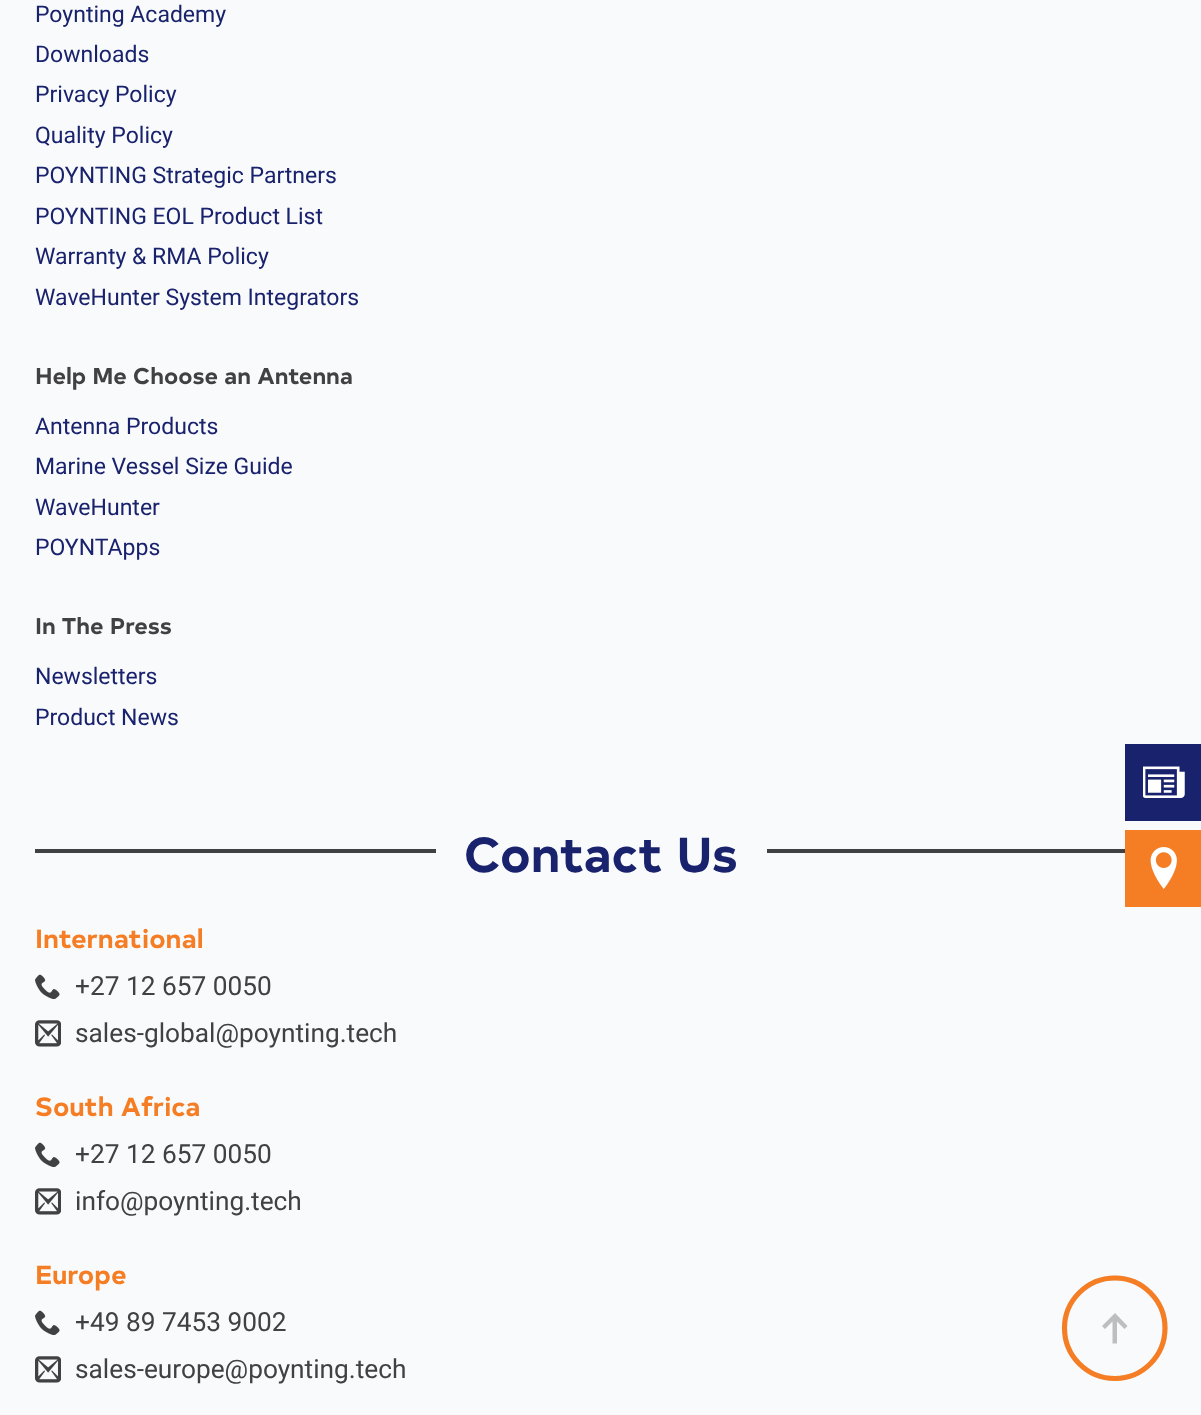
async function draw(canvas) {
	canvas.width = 1201;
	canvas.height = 1415;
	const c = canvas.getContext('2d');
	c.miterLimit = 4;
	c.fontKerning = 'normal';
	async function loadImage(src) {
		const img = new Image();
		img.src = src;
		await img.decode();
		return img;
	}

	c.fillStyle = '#f9fafb';
	c.fillRect(0, 0, 1201, 1415);
	c.font = '23px Roboto';
	c.fillStyle = '#19226d';
	for (const [text, x, y] of [
		['Poynting Academy', 35, 22],
		['Downloads', 35, 62],
		['Privacy Policy', 35, 102],
		['Quality Policy', 35, 143],
		['POYNTING Strategic Partners', 35, 183],
		['POYNTING EOL Product List', 35, 224],
		['Warranty & RMA Policy', 35, 264],
		['WaveHunter System Integrators', 35, 305],
	]) {
		c.fillText(text, x, y);
	}
	c.font = 'bold 22.75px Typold';
	c.fillStyle = '#414042';
	c.fillText('Help Me Choose an Antenna', 35, 384);
	c.font = '23px Roboto';
	c.fillStyle = '#19226d';
	for (const [text, x, y] of [
		['Antenna Products', 35, 434],
		['Marine Vessel Size Guide', 35, 474],
		['WaveHunter', 35, 515],
		['POYNTApps', 35, 555],
	]) {
		c.fillText(text, x, y);
	}
	c.font = 'bold 22.75px Typold';
	c.fillStyle = '#414042';
	c.fillText('In The Press', 35, 634);
	c.font = '23px Roboto';
	c.fillStyle = '#19226d';
	c.fillText('Newsletters', 35, 684);
	c.fillText('Product News', 35, 725);
	c.fillStyle = '#414042';
	c.fillRect(35, 849, 401, 4);
	c.font = 'bold 49px Typold';
	c.fillStyle = '#19226d';
	c.fillText('Contact Us', 464, 872);
	c.fillStyle = '#414042';
	c.fillRect(767, 849, 358, 4);
	c.font = 'bold 26.25px Typold';
	c.fillStyle = '#f57e25';
	c.fillText('International', 35, 948);
	c.drawImage(await loadImage('img1.png'), 35, 974, 25, 25);
	c.font = '26.25px Roboto';
	c.fillStyle = '#414042';
	c.fillText('+27 12 657 0050', 75, 995);
	c.drawImage(await loadImage('img2.png'), 35, 1020, 26, 27);
	c.fillText('sales-global@poynting.tech', 75, 1042);
	c.font = 'bold 26.25px Typold';
	c.fillStyle = '#f57e25';
	c.fillText('South Africa', 35, 1116);
	c.drawImage(await loadImage('img1.png'), 35, 1142, 25, 25);
	c.font = '26.25px Roboto';
	c.fillStyle = '#414042';
	c.fillText('+27 12 657 0050', 75, 1163);
	c.drawImage(await loadImage('img2.png'), 35, 1188, 26, 27);
	c.fillText('info@poynting.tech', 75, 1210);
	c.font = 'bold 26.25px Typold';
	c.fillStyle = '#f57e25';
	c.fillText('Europe', 35, 1284);
	c.drawImage(await loadImage('img1.png'), 35, 1310, 25, 25);
	c.font = '26.25px Roboto';
	c.fillStyle = '#414042';
	c.fillText('+49 89 7453 9002', 75, 1331);
	c.drawImage(await loadImage('img2.png'), 35, 1356, 26, 27);
	c.fillText('sales-europe@poynting.tech', 75, 1378);
	c.fillStyle = '#19226d';
	c.fillRect(1125, 744, 76, 77);
	c.drawImage(await loadImage('img3.png'), 1143, 766, 42, 32);
	c.fillStyle = '#f57e25';
	c.fillRect(1125, 830, 76, 77);
	c.drawImage(await loadImage('img4.png'), 1150, 847, 27, 42);
	c.fillStyle = '#bcbec0';
	c.beginPath();
	c.moveTo(1116.5, 1314.5);
	c.lineTo(1115, 1313);
	c.lineTo(1102, 1326);
	c.lineTo(1105, 1329);
	c.lineTo(1112.5, 1321.5);
	c.lineTo(1112.5, 1343.5);
	c.lineTo(1117, 1343.5);
	c.lineTo(1117, 1321.5);
	c.lineTo(1124.5, 1329);
	c.lineTo(1127.5, 1326);
	c.closePath();
	c.fill();
	c.beginPath();
	c.moveTo(1115, 1278);
	c.bezierCurveTo(1142.5, 1278, 1165, 1300.5, 1165, 1328);
	c.bezierCurveTo(1165, 1356, 1142.5, 1378.5, 1115, 1378.5);
	c.bezierCurveTo(1087, 1378.5, 1064.5, 1356, 1064.5, 1328);
	c.bezierCurveTo(1064.5, 1300.5, 1087, 1278, 1115, 1278);
	c.strokeStyle = '#e5e7eb';
	c.lineWidth = 5.1;
	c.lineCap = 'round';
	c.stroke();
	c.beginPath();
	c.moveTo(1115, 1278);
	c.bezierCurveTo(1142.5, 1278, 1165, 1300.5, 1165, 1328);
	c.bezierCurveTo(1165, 1356, 1142.5, 1378.5, 1115, 1378.5);
	c.bezierCurveTo(1087, 1378.5, 1064.5, 1356, 1064.5, 1328);
	c.bezierCurveTo(1064.5, 1300.5, 1087, 1278, 1115, 1278);
	c.strokeStyle = '#f57e25';
	c.stroke();
}

draw(document.querySelector('canvas'));
